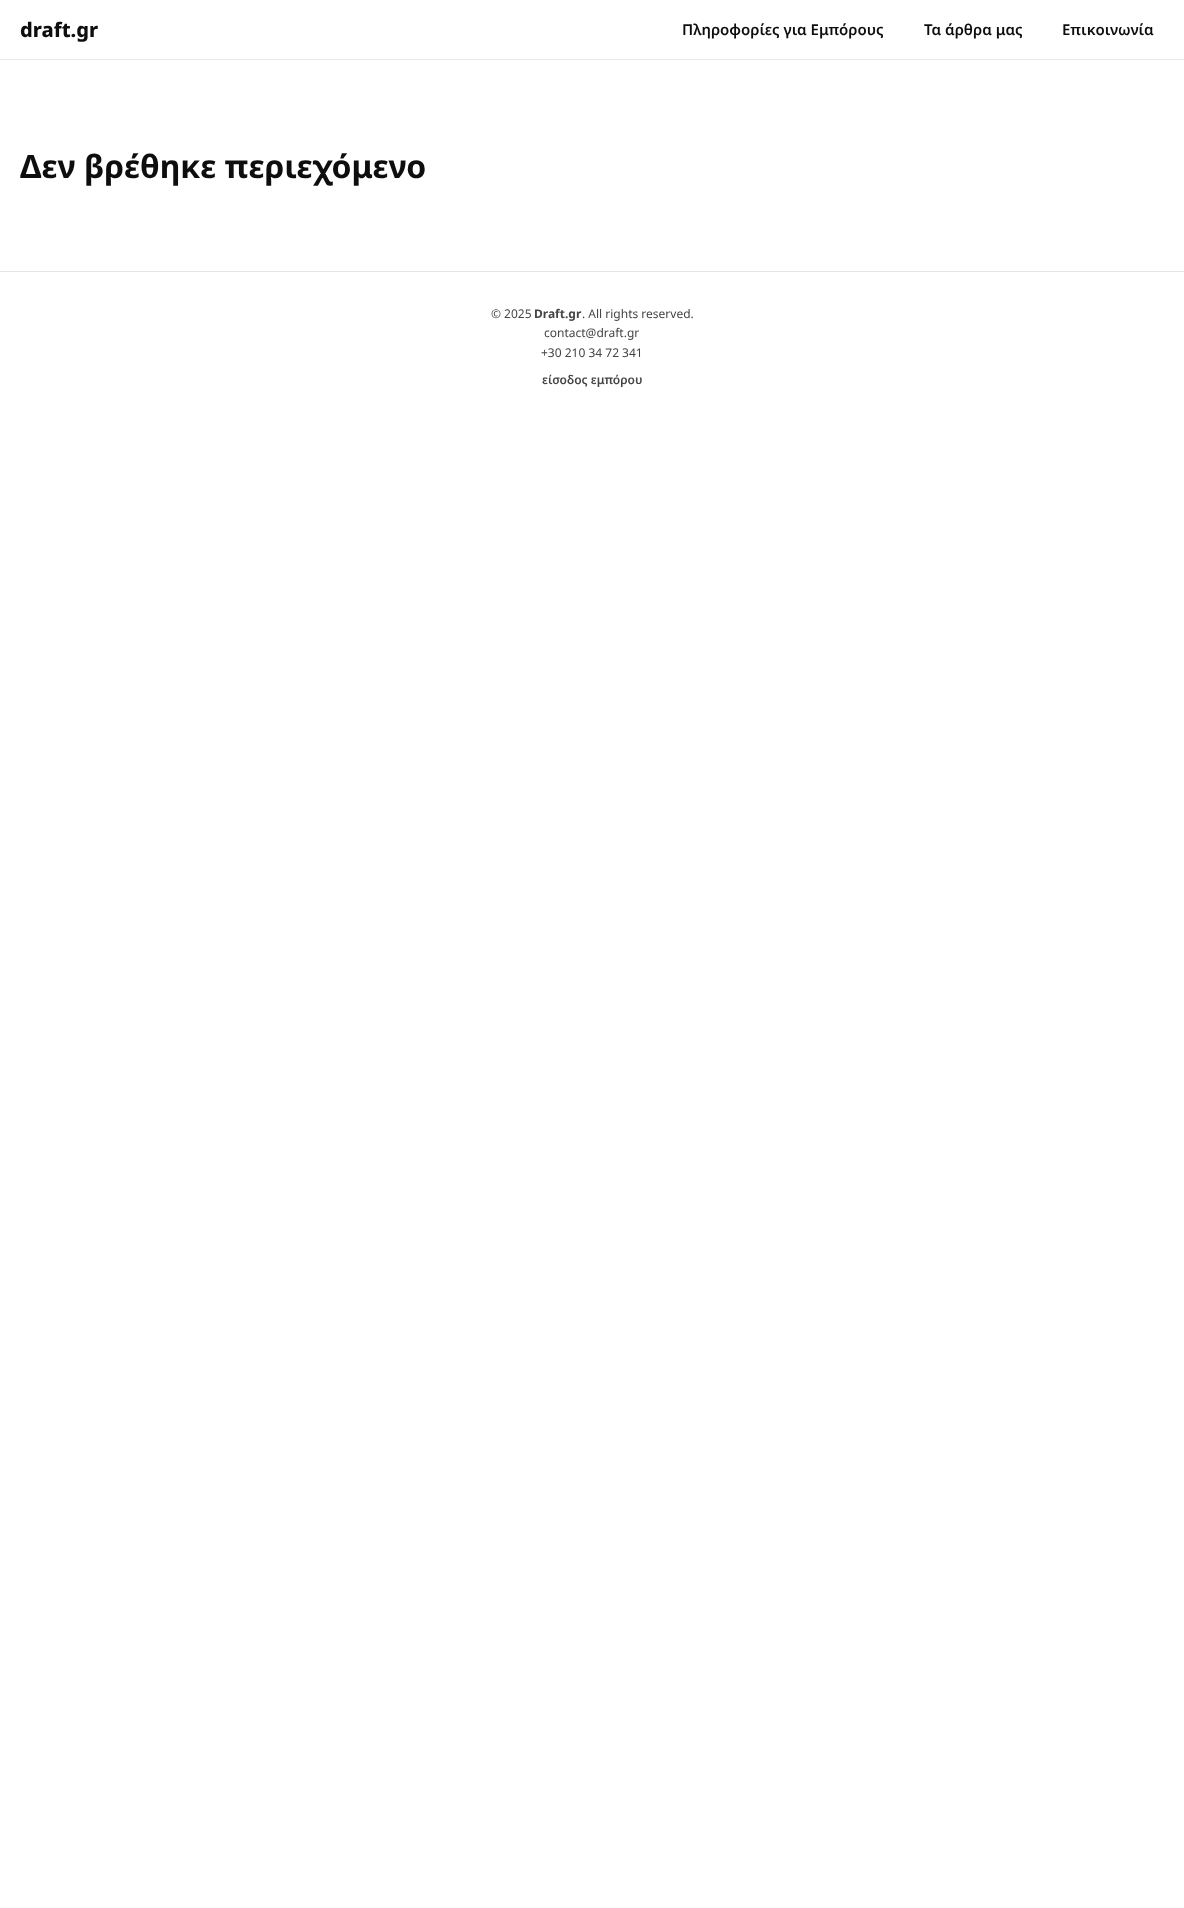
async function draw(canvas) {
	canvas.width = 1184;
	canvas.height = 1908;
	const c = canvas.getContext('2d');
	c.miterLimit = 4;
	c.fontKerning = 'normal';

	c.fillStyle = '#fff';
	c.fillRect(0, 0, 1184, 1908);
	c.fillStyle = '#eaeaea';
	c.fillRect(0, 59, 1184, 1);
	c.font = '800 20px Noto Sans';
	c.fillStyle = '#0e0e0e';
	c.fillText('draft.gr', 20, 37);
	c.font = '600 15px Noto Sans';
	for (const [text, x, y] of [
		['Πληροφορίες για Εμπόρους', 682, 35],
		['Τα άρθρα μας', 924, 35],
		['Επικοινωνία', 1062, 35],
	]) {
		c.fillText(text, x, y);
	}
	c.font = 'bold 32px Noto Sans';
	c.fillText('Δεν βρέθηκε περιεχόμενο', 20, 178);
	c.fillStyle = '#e5e5e5';
	c.fillRect(0, 271, 1184, 1);
	c.font = '12px Noto Sans';
	c.fillStyle = '#444';
	c.fillText('© 2025', 491, 318);
	c.font = 'bold 12px Noto Sans';
	c.fillText('Draft.gr', 534, 318);
	c.font = '12px Noto Sans';
	for (const [text, x, y] of [
		['. All rights reserved.', 582, 318],
		['contact@draft.gr', 544, 337],
		['+30 210 34 72 341', 541, 357],
	]) {
		c.fillText(text, x, y);
	}
	c.font = '600 12px Noto Sans';
	c.fillText('είσοδος εμπόρου', 542, 384);
}

draw(document.querySelector('canvas'));
